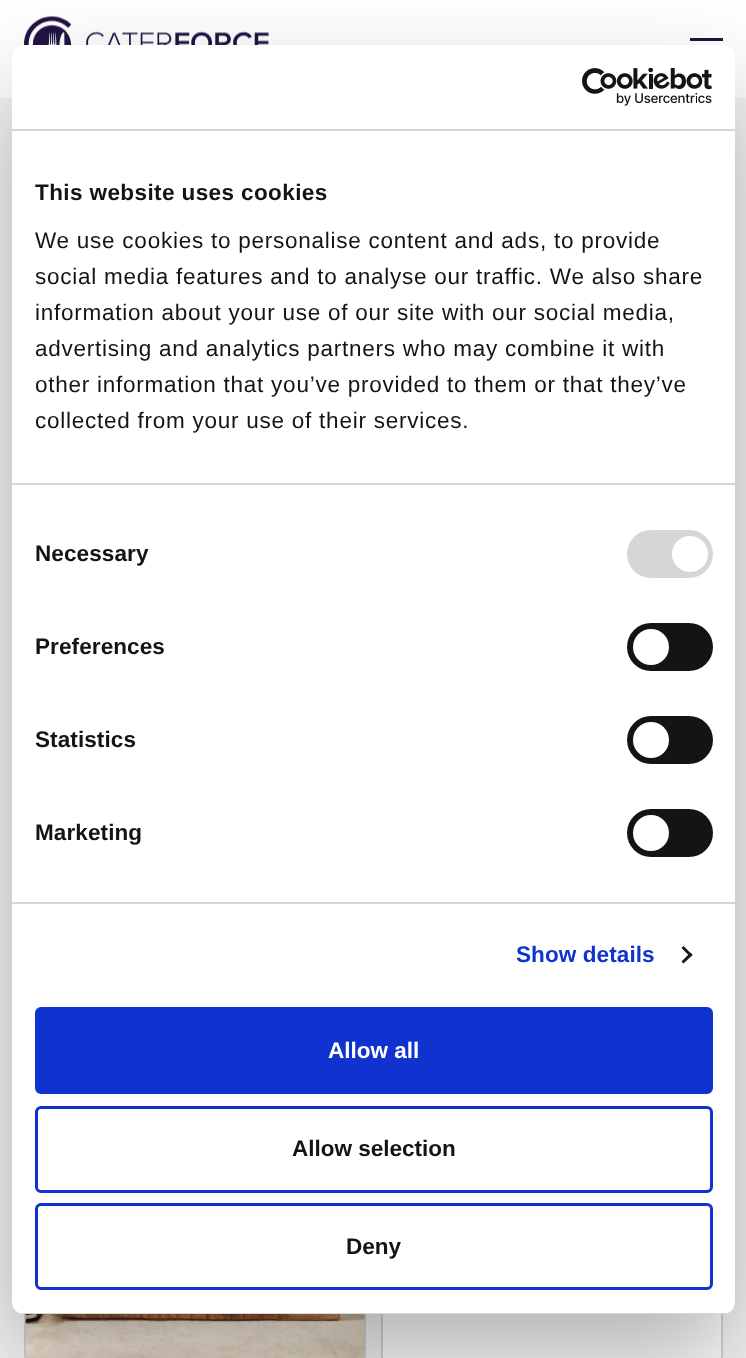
async function draw(canvas) {
	canvas.width = 746;
	canvas.height = 1358;
	const c = canvas.getContext('2d');
	c.miterLimit = 4;
	c.fontKerning = 'normal';
	async function loadImage(src) {
		const img = new Image();
		img.src = src;
		await img.decode();
		return img;
	}

	c.fillStyle = '#fff';
	c.fillRect(0, 0, 746, 1358);
	c.drawImage(await loadImage('img1.png'), 24, 16, 245, 29);
	c.fillStyle = '#211445';
	c.fillRect(690, 38, 33, 3);
	c.fillStyle = '#f5f5f5';
	c.fillRect(0, 98, 746, 1260);
	c.beginPath();
	c.roundRect(25, 1023, 340, 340, 8);
	c.strokeStyle = '#d1d1d1';
	c.lineWidth = 2;
	c.stroke();
	c.drawImage(await loadImage('img2.png'), 25, 1314, 340, 44);
	c.beginPath();
	c.roundRect(382, 1023, 340, 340, 8);
	c.stroke();
	c.drawImage(await loadImage('img3.png'), 382, 1314, 340, 44);
	c.fillStyle = '#0000004d';
	c.filter = 'blur(51px)';
	c.beginPath();
	c.roundRect(12, 93, 723, 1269, 12);
	c.fill();
	c.filter = 'none';
	c.fillStyle = '#fff';
	c.beginPath();
	c.roundRect(12, 45, 723, 1269, 12);
	c.fill();
	c.fillStyle = '#d6d6d6';
	c.fillRect(12, 129, 723, 2);
	c.drawImage(await loadImage('img4.png'), 582, 68, 130, 38);
	c.fillRect(12, 483, 723, 2);
	c.letterSpacing = '0.4px';
	c.font = 'bold 22.5px Liberation Sans';
	c.fillStyle = '#141414';
	c.fillText('This website uses cookies', 35, 200);
	c.letterSpacing = '0.75px';
	c.font = '22.5px Liberation Sans';
	for (const [text, x, y] of [
		['We use cookies to personalise content and ads, to provide', 35, 248],
		['social media features and to analyse our traffic. We also share', 35, 284],
		['information about your use of our site with our social media,', 35, 320],
		['advertising and analytics partners who may combine it with', 35, 356],
		['other information that you’ve provided to them or that they’ve', 35, 392],
		['collected from your use of their services.', 35, 428],
	]) {
		c.fillText(text, x, y);
	}
	c.fillStyle = '#d6d6d6';
	c.fillRect(12, 902, 723, 2);
	c.letterSpacing = '0.1px';
	c.font = 'bold 22.5px Liberation Sans';
	c.fillStyle = '#141414';
	c.fillText('Necessary', 35, 561);
	c.fillStyle = '#d6d6d6';
	c.beginPath();
	c.roundRect(627, 530, 86, 48, 24);
	c.fill();
	c.fillStyle = '#fff';
	c.beginPath();
	c.arc(690, 554, 18, 0, 2 * Math.PI);
	c.fill();
	c.fillStyle = '#141414';
	c.fillText('Preferences', 35, 654);
	c.beginPath();
	c.roundRect(627, 623, 86, 48, 24);
	c.fill();
	c.fillStyle = '#fff';
	c.beginPath();
	c.arc(651, 647, 18, 0, 2 * Math.PI);
	c.fill();
	c.fillStyle = '#141414';
	c.fillText('Statistics', 35, 747);
	c.beginPath();
	c.roundRect(627, 716, 86, 48, 24);
	c.fill();
	c.fillStyle = '#fff';
	c.beginPath();
	c.arc(651, 740, 18, 0, 2 * Math.PI);
	c.fill();
	c.fillStyle = '#141414';
	c.fillText('Marketing', 35, 840);
	c.beginPath();
	c.roundRect(627, 809, 86, 48, 24);
	c.fill();
	c.fillStyle = '#fff';
	c.beginPath();
	c.arc(651, 833, 18, 0, 2 * Math.PI);
	c.fill();
	c.fillStyle = '#1032cf';
	c.fillText('Show details', 516, 962);
	c.fillStyle = '#141414';
	c.beginPath();
	c.moveTo(683.5, 946);
	c.lineTo(692.5, 955);
	c.lineTo(690.5, 957);
	c.lineTo(681.5, 948);
	c.closePath();
	c.fill();
	c.beginPath();
	c.moveTo(690.5, 952.5);
	c.lineTo(692.5, 955);
	c.lineTo(683.5, 963.5);
	c.lineTo(681.5, 961.5);
	c.closePath();
	c.fill();
	c.save();
	c.beginPath();
	c.roundRect(12, 45, 723, 1269, 12);
	c.clip();
	c.fillStyle = '#d6d6d6';
	c.fillRect(12, 1313, 723, 1);
	c.restore();
	c.fillStyle = '#1032cf';
	c.beginPath();
	c.roundRect(36.5, 1008.5, 675, 84, 4.5);
	c.fill();
	c.strokeStyle = '#1032cf';
	c.lineWidth = 3;
	c.stroke();
	c.letterSpacing = '0px';
	c.fillStyle = '#fff';
	c.fillText('Allow all', 328, 1058);
	c.beginPath();
	c.roundRect(36.5, 1107.5, 675, 84, 4.5);
	c.stroke();
	c.fillStyle = '#141414';
	c.fillText('Allow selection', 292, 1156);
	c.beginPath();
	c.roundRect(36.5, 1204.5, 675, 84, 4.5);
	c.stroke();
	c.fillText('Deny', 346, 1254);
}

draw(document.querySelector('canvas'));
